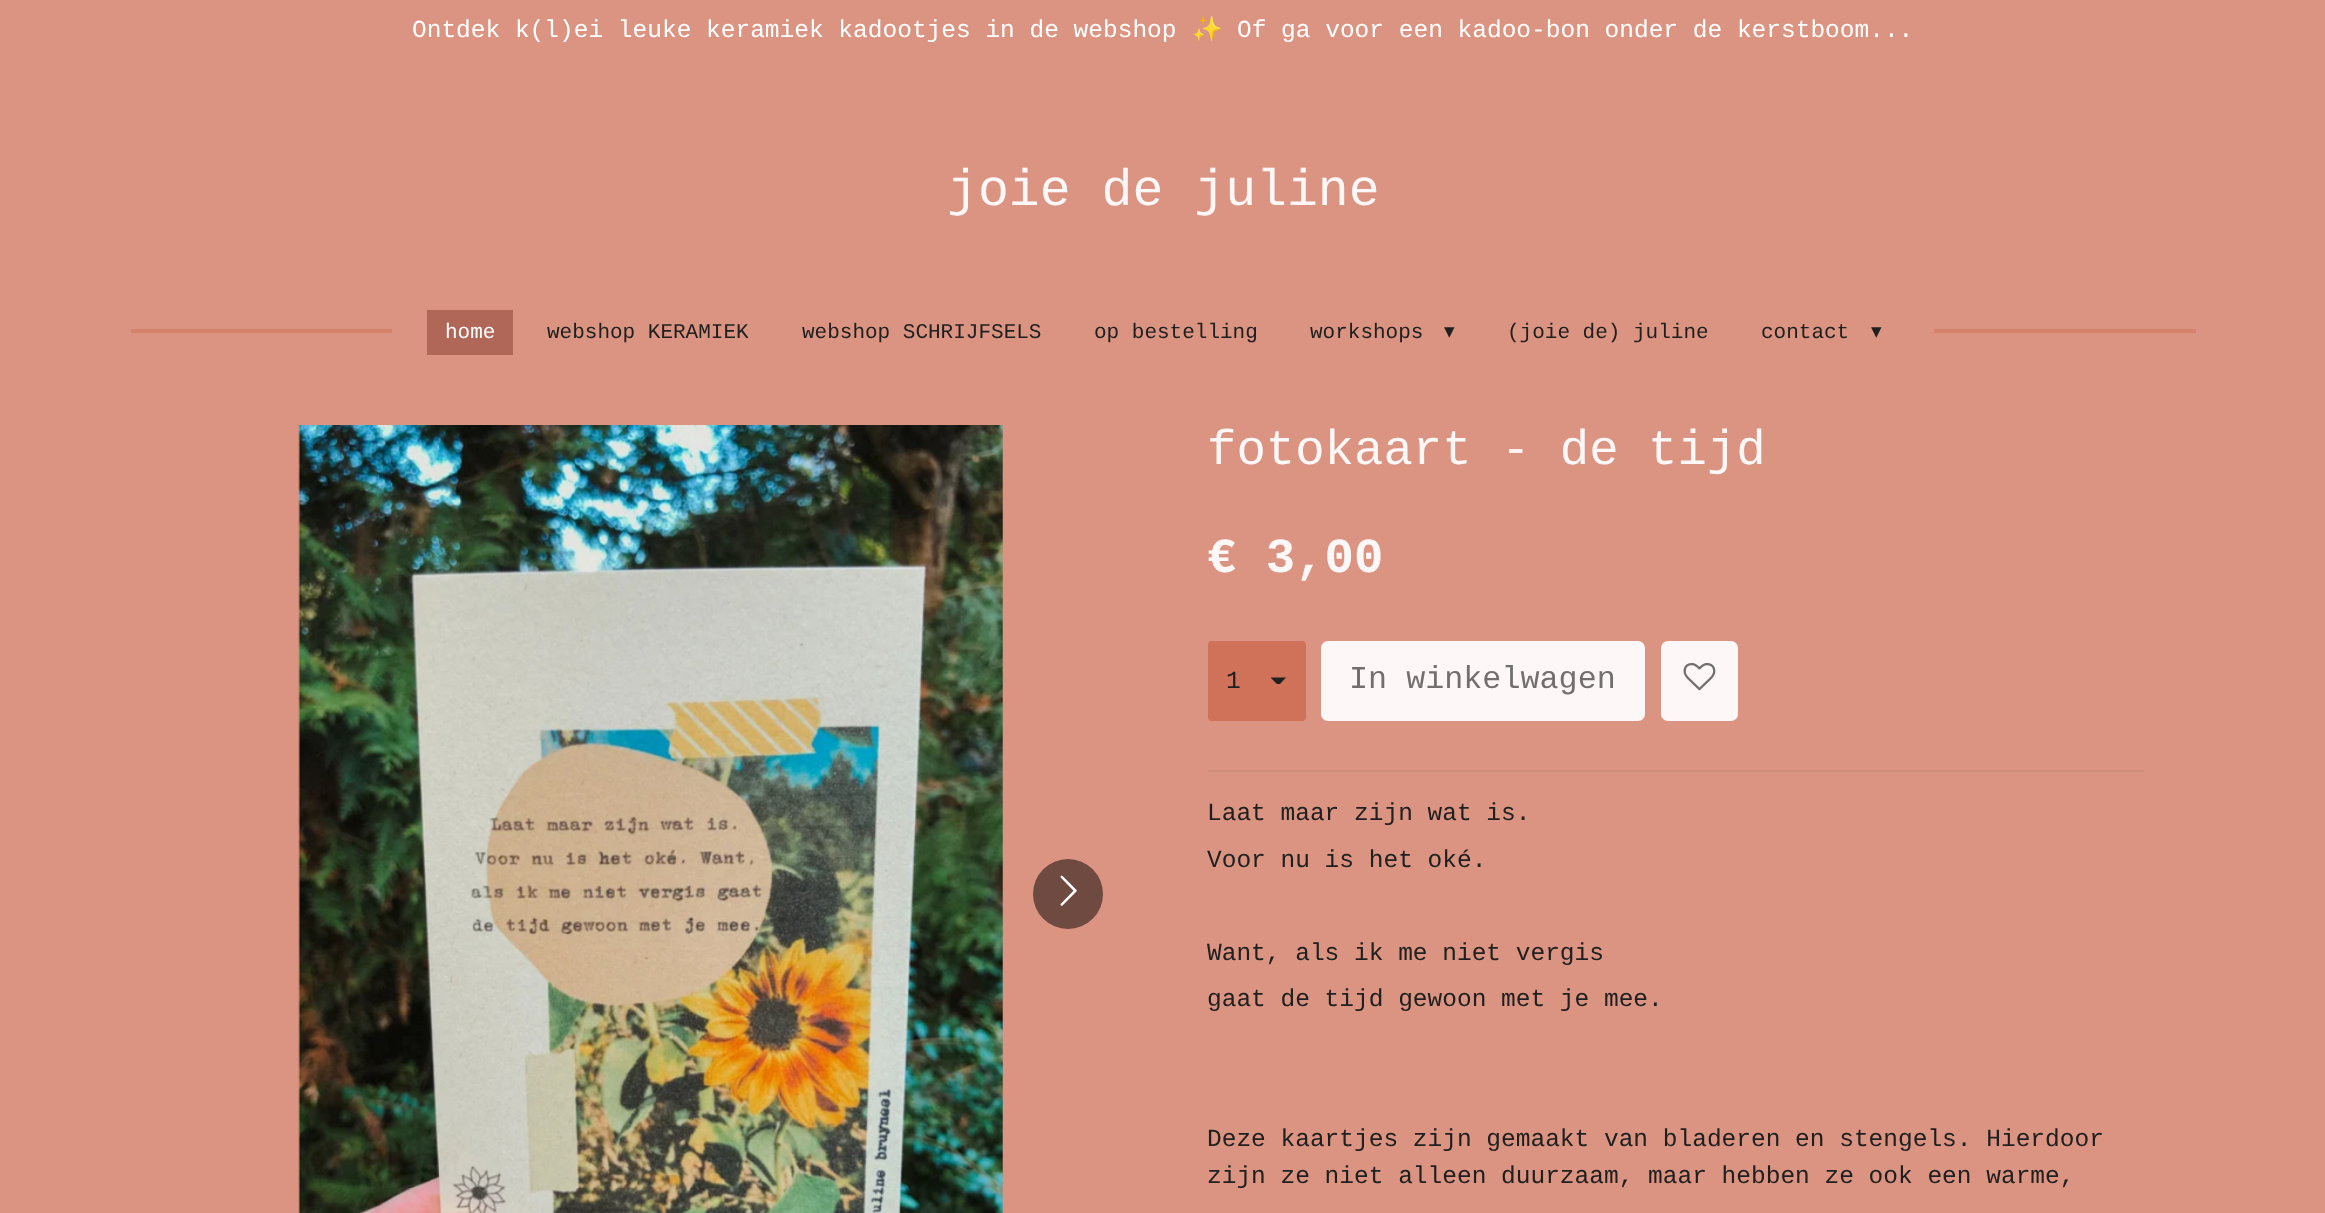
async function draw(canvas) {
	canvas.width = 2325;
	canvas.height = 1213;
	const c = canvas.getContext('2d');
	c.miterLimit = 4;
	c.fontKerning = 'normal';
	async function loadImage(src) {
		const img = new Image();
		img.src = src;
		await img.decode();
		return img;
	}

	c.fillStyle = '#db9481';
	c.fillRect(0, 0, 2325, 1213);
	c.font = '24.5px Liberation Mono';
	c.fillStyle = '#fff';
	c.fillText('Ontdek k(l)ei leuke keramiek kadootjes in de webshop', 412, 37);
	c.font = '24.5px Noto Color Emoji';
	c.fillText('✨', 1192, 37);
	c.font = '24.5px Liberation Mono';
	c.fillText('Of ga voor een kadoo-bon onder de kerstboom...', 1237, 37);
	c.font = '51.5px Liberation Mono';
	c.fillStyle = '#fef7f7';
	c.fillText('joie de juline', 947, 205);
	c.fillStyle = '#d5836d';
	c.fillRect(131, 329, 261, 4);
	c.fillStyle = '#b16757';
	c.fillRect(427, 310, 86, 45);
	c.font = '21px Liberation Mono';
	c.fillStyle = '#fff';
	c.fillText('home', 445, 338);
	c.fillStyle = '#202020';
	for (const [text, x, y] of [
		['webshop KERAMIEK', 547, 338],
		['webshop SCHRIJFSELS', 802, 338],
		['op bestelling', 1094, 338],
		['workshops', 1310, 338],
	]) {
		c.fillText(text, x, y);
	}
	c.font = '21px DejaVu Sans';
	c.fillText('▾', 1444, 338);
	c.font = '21px Liberation Mono';
	c.fillText('(joie de) juline', 1507, 338);
	c.fillText('contact', 1761, 338);
	c.font = '21px DejaVu Sans';
	c.fillText('▾', 1871, 338);
	c.fillStyle = '#d5836d';
	c.fillRect(1934, 329, 262, 4);
	c.drawImage(await loadImage('img1.png'), 298, 425, 705, 788);
	c.fillStyle = '#6e4a41';
	c.beginPath();
	c.arc(1068, 894, 35, 0, 2 * Math.PI);
	c.fill();
	c.drawImage(await loadImage('img2.png'), 1060, 875, 17, 31);
	c.font = '49px Liberation Mono';
	c.fillStyle = '#fef7f7';
	c.fillText('fotokaart - de tijd', 1207, 464);
	c.font = 'bold 49px Liberation Mono';
	c.fillText('€ 3,00', 1207, 572);
	c.fillStyle = '#d07259';
	c.beginPath();
	c.roundRect(1208, 641, 98, 80, 4);
	c.fill();
	c.save();
	c.beginPath();
	c.rect(1271, 677, 15, 7);
	c.clip();
	c.fillStyle = '#202020';
	c.beginPath();
	c.moveTo(1278.5, 685.5);
	c.lineTo(1270.5, 677.5);
	c.lineTo(1286, 677.5);
	c.closePath();
	c.fill();
	c.restore();
	c.font = '24.5px Liberation Mono';
	c.fillStyle = '#202020';
	c.fillText('1', 1226, 688);
	c.fillStyle = '#fef7f7';
	c.beginPath();
	c.roundRect(1321, 641, 324, 80, 7);
	c.fill();
	c.font = '31.75px Liberation Mono';
	c.fillStyle = '#726f6f';
	c.fillText('In winkelwagen', 1349, 688);
	c.fillStyle = '#fef7f7';
	c.beginPath();
	c.roundRect(1661, 641, 77, 80, 7);
	c.fill();
	c.drawImage(await loadImage('img3.png'), 1683, 662, 33, 29);
	c.fillStyle = '#ce8c7a';
	c.fillRect(1208, 770, 936, 2);
	c.font = '24.5px Liberation Mono';
	c.fillStyle = '#202020';
	for (const [text, x, y] of [
		['Laat maar zijn wat is.', 1207, 820],
		['Voor nu is het oké.', 1207, 867],
		['Want, als ik me niet vergis', 1207, 960],
		['gaat de tijd gewoon met je mee.', 1207, 1006],
		['Deze kaartjes zijn gemaakt van bladeren en stengels. Hierdoor', 1207, 1146],
		['zijn ze niet alleen duurzaam, maar hebben ze ook een warme,', 1207, 1183],
	]) {
		c.fillText(text, x, y);
	}
}

draw(document.querySelector('canvas'));
